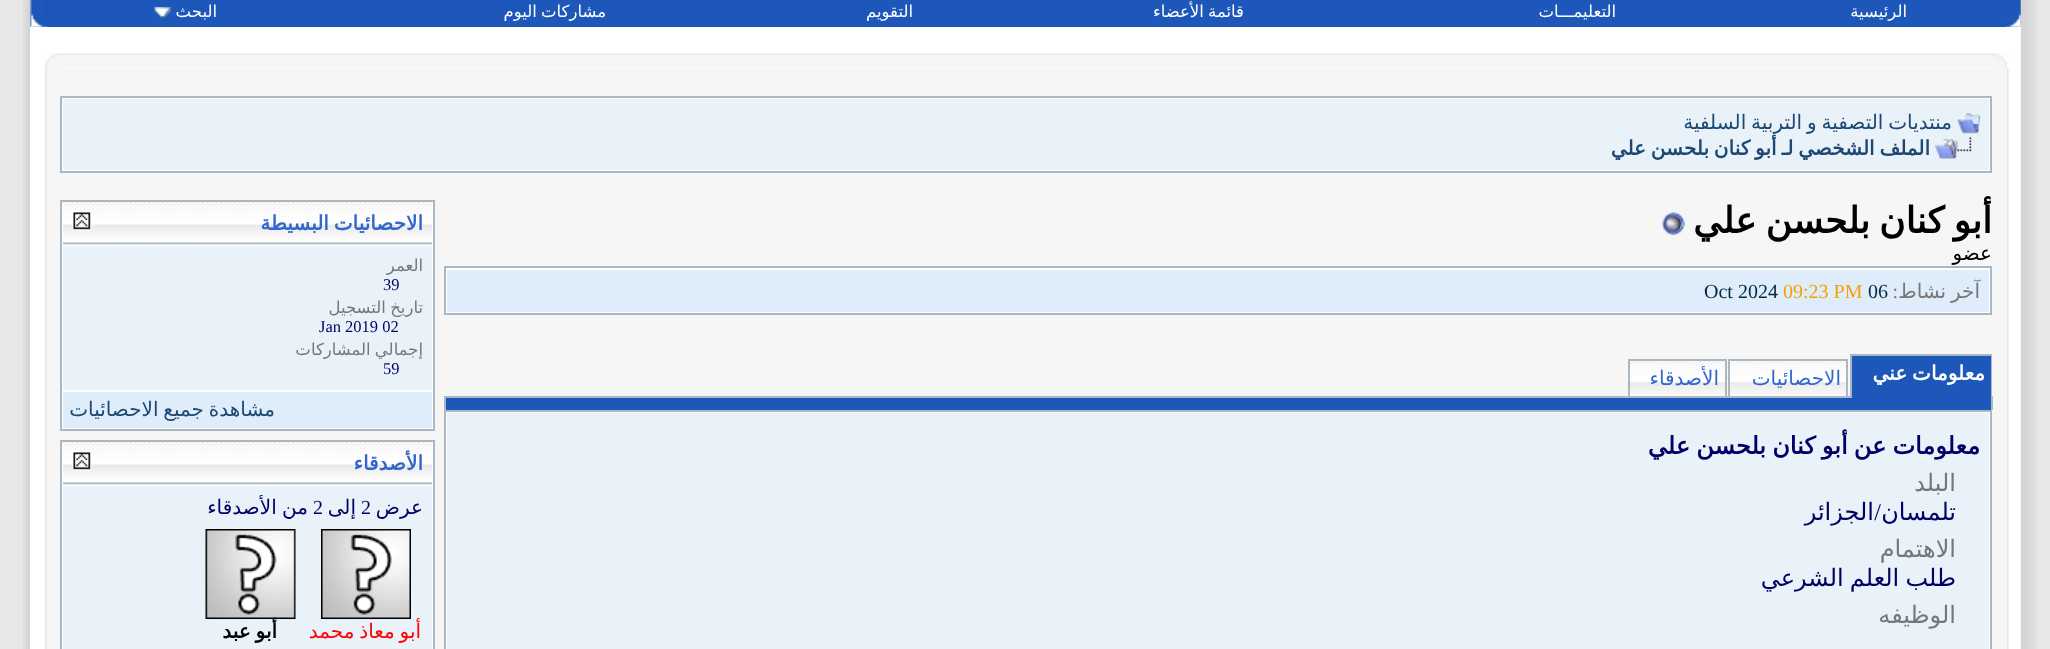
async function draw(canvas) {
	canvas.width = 2050;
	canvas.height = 649;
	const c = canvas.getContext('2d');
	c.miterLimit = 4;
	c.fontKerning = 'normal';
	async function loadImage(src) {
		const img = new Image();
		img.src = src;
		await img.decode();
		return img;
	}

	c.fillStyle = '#e7e7e7';
	c.fillRect(0, 0, 2050, 649);
	c.drawImage(await loadImage('img1.png'), 2021, 0, 16, 649);
	c.fillStyle = '#fff';
	c.fillRect(30, 0, 1991, 649);
	c.drawImage(await loadImage('img2.png'), 30, 0, 1991, 27);
	c.drawImage(await loadImage('img3.png'), 2006, 0, 15, 27);
	c.fillStyle = '#1c57b9';
	c.fillRect(47, 0, 1959, 27);
	c.direction = 'rtl';
	c.font = '16.5px DejaVu Sans';
	c.fillStyle = '#fff';
	c.fillText('الرئيسية', 1907, 17);
	c.fillText('التعليمـــات', 1616, 17);
	c.wordSpacing = '-1px';
	c.fillText('قائمة الأعضاء', 1244, 17);
	c.wordSpacing = '0px';
	c.fillText('التقويم', 913, 17);
	c.wordSpacing = '-1px';
	c.fillText('مشاركات اليوم', 606, 17);
	c.wordSpacing = '0px';
	c.fillText('البحث', 217, 17);
	c.drawImage(await loadImage('img4.png'), 154, 7, 17, 11);
	c.drawImage(await loadImage('img5.png'), 31, 0, 16, 27);
	c.drawImage(await loadImage('img9.png'), 1992, 68, 17, 581);
	c.drawImage(await loadImage('img6.png'), 1992, 53, 17, 16);
	c.drawImage(await loadImage('img7.png'), 60, 53, 1932, 16);
	c.drawImage(await loadImage('img21.png'), 45, 68, 15, 581);
	c.drawImage(await loadImage('img8.png'), 44, 53, 16, 16);
	c.fillStyle = '#f6f6f6';
	c.fillRect(60, 69, 1932, 580);
	c.fillStyle = '#fff';
	c.beginPath();
	c.rect(61, 97, 1930, 75);
	c.fill();
	c.strokeStyle = '#a9b8c2';
	c.lineWidth = 2;
	c.stroke();
	c.fillStyle = '#eaf2f9';
	c.fillRect(63, 99, 1926, 71);
	c.drawImage(await loadImage('img10.png'), 1957, 113, 23, 21);
	c.wordSpacing = '-1.5px';
	c.font = '20px DejaVu Sans';
	c.fillStyle = '#1c4874';
	c.fillText('منتديات التصفية و التربية السلفية', 1952, 129);
	c.drawImage(await loadImage('img11.png'), 1935, 137, 37, 22);
	c.font = 'bold 20px DejaVu Sans';
	c.fillText('الملف الشخصي لـ أبو كنان بلحسن علي', 1930, 155);
	c.wordSpacing = '-2.5px';
	c.font = 'bold 36px DejaVu Sans';
	c.fillStyle = '#000';
	c.fillText('أبو كنان بلحسن علي', 1992, 233);
	c.drawImage(await loadImage('img12.png'), 1662, 212, 23, 23);
	c.wordSpacing = '0px';
	c.font = '20px DejaVu Sans';
	c.fillText('عضو', 1992, 260);
	c.fillStyle = '#fff';
	c.beginPath();
	c.rect(445, 267, 1546, 47);
	c.fill();
	c.stroke();
	c.fillStyle = '#dfedfa';
	c.fillRect(447, 270, 1542, 42);
	c.wordSpacing = '-1.5px';
	c.fillStyle = '#777';
	c.fillText('آخر نشاط', 1980, 298);
	c.wordSpacing = '0px';
	c.font = '20px Liberation Serif';
	c.fillText(':', 1898, 298);
	c.direction = 'ltr';
	c.fillStyle = '#002a46';
	c.fillText('06', 1868, 298);
	c.fillStyle = '#f99f03';
	c.fillText('09:23 PM', 1783, 298);
	c.fillStyle = '#002a46';
	c.fillText('Oct 2024', 1704, 298);
	for (const [x, y, w, h, color] of [
		[1852, 356, 139, 42, '#1c57b9'],
		[1850, 354, 142, 2, '#a9b8c2'],
		[1991, 396, 2, 14, '#a9b8c2'],
		[1991, 354, 1, 44, '#a9b8c2'],
		[1850, 354, 2, 44, '#a9b8c2'],
	]) {
		c.fillStyle = color;
		c.fillRect(x, y, w, h);
	}
	c.wordSpacing = '-1.5px';
	c.direction = 'rtl';
	c.font = 'bold 20px DejaVu Sans';
	c.fillStyle = '#fff';
	c.fillText('معلومات عني', 1985, 380);
	c.drawImage(await loadImage('img13.png'), 1730, 361, 116, 35);
	c.fillStyle = '#a9b8c2';
	c.fillRect(444, 396, 1406, 2);
	c.strokeRect(1729, 360, 118, 37);
	c.wordSpacing = '0px';
	c.font = '20px DejaVu Sans';
	c.fillStyle = '#36c';
	c.fillText('الاحصائيات', 1841, 385);
	c.drawImage(await loadImage('img14.png'), 1627, 359, 98, 38);
	c.strokeRect(1629, 360, 97, 37);
	c.fillText('الأصدقاء', 1719, 385);
	c.fillStyle = '#1c57b9';
	c.fillRect(446, 398, 1545, 12);
	c.fillStyle = '#a9b8c2';
	c.fillRect(444, 396, 2, 14);
	c.fillStyle = '#fff';
	c.beginPath();
	c.rect(445, 411, 1546, 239);
	c.fill();
	c.stroke();
	c.fillStyle = '#eaf2f9';
	c.fillRect(447, 413, 1542, 236);
	c.wordSpacing = '-1.5px';
	c.font = 'bold 24px DejaVu Sans';
	c.fillStyle = '#006';
	c.fillText('معلومات عن أبو كنان بلحسن علي', 1980, 454);
	c.wordSpacing = '0px';
	c.font = '24px DejaVu Sans';
	c.fillStyle = '#777';
	c.fillText('البلد', 1956, 491);
	c.fillStyle = '#006';
	c.fillText('تلمسان', 1956, 520);
	c.font = '24px Liberation Serif';
	c.fillText('/', 1881, 520);
	c.font = '24px DejaVu Sans';
	c.fillText('الجزائر', 1874, 520);
	c.fillStyle = '#777';
	c.fillText('الاهتمام', 1956, 557);
	c.wordSpacing = '-1.5px';
	c.fillStyle = '#006';
	c.fillText('طلب العلم الشرعي', 1956, 586);
	c.wordSpacing = '0px';
	c.fillStyle = '#777';
	c.fillText('الوظيفه', 1956, 623);
	c.fillStyle = '#fff';
	c.beginPath();
	c.rect(61, 201, 373, 229);
	c.fill();
	c.stroke();
	c.fillStyle = '#e6e6e6';
	c.fillRect(63, 244, 369, 1);
	c.drawImage(await loadImage('img15.png'), 63, 202, 369, 42);
	c.wordSpacing = '-1.5px';
	c.font = 'bold 20px DejaVu Sans';
	c.fillStyle = '#36c';
	c.fillText('الاحصائيات البسيطة', 423, 230);
	c.drawImage(await loadImage('img16.png'), 72, 211, 20, 20);
	c.fillStyle = '#eaf2f9';
	c.fillRect(63, 246, 369, 144);
	c.wordSpacing = '0px';
	c.font = '16.5px DejaVu Sans';
	c.fillStyle = '#777';
	c.fillText('العمر', 423, 271);
	c.direction = 'ltr';
	c.font = '16.5px Liberation Serif';
	c.fillStyle = '#006';
	c.fillText('39', 383, 290);
	c.wordSpacing = '-1px';
	c.direction = 'rtl';
	c.font = '16.5px DejaVu Sans';
	c.fillStyle = '#777';
	c.fillText('تاريخ التسجيل', 423, 313);
	c.wordSpacing = '0px';
	c.direction = 'ltr';
	c.font = '16.5px Liberation Serif';
	c.fillStyle = '#006';
	c.fillText('Jan 2019 02', 319, 332);
	c.wordSpacing = '-1px';
	c.direction = 'rtl';
	c.font = '16.5px DejaVu Sans';
	c.fillStyle = '#777';
	c.fillText('إجمالي المشاركات', 423, 355);
	c.wordSpacing = '0px';
	c.direction = 'ltr';
	c.font = '16.5px Liberation Serif';
	c.fillStyle = '#006';
	c.fillText('59', 383, 374);
	c.fillStyle = '#dfedfa';
	c.fillRect(63, 392, 369, 36);
	c.wordSpacing = '-1.5px';
	c.direction = 'rtl';
	c.font = '20px DejaVu Sans';
	c.fillStyle = '#1c4874';
	c.fillText('مشاهدة جميع الاحصائيات', 275, 416);
	c.fillStyle = '#fff';
	c.beginPath();
	c.rect(61, 441, 373, 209);
	c.fill();
	c.stroke();
	c.fillStyle = '#e6e6e6';
	c.fillRect(63, 484, 369, 1);
	c.drawImage(await loadImage('img17.png'), 63, 442, 369, 42);
	c.wordSpacing = '0px';
	c.font = 'bold 20px DejaVu Sans';
	c.fillStyle = '#36c';
	c.fillText('الأصدقاء', 423, 470);
	c.drawImage(await loadImage('img18.png'), 72, 451, 20, 20);
	c.fillStyle = '#eaf2f9';
	c.fillRect(63, 486, 369, 163);
	c.font = '20px DejaVu Sans';
	c.fillStyle = '#006';
	c.fillText('عرض', 423, 514);
	c.direction = 'ltr';
	c.font = '20px Liberation Serif';
	c.fillText('2', 361, 514);
	c.direction = 'rtl';
	c.font = '20px DejaVu Sans';
	c.fillText('إلى', 356, 514);
	c.direction = 'ltr';
	c.font = '20px Liberation Serif';
	c.fillText('2', 313, 514);
	c.wordSpacing = '-1px';
	c.direction = 'rtl';
	c.font = '20px DejaVu Sans';
	c.fillText('من الأصدقاء', 308, 514);
	c.drawImage(await loadImage('img19.png'), 321, 529, 90, 90);
	c.fillStyle = '#dfedfa';
	c.fillRect(321, 619, 90, 1);
	c.save();
	c.beginPath();
	c.rect(309, 530, 113, 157);
	c.clip();
	c.wordSpacing = '-1.5px';
	c.fillStyle = '#f00';
	c.fillText('أبو معاذ محمد', 421, 638);
	c.restore();
	c.fillRect(206, 530, 90, 90);
	c.drawImage(await loadImage('img20.png'), 205, 529, 91, 90);
	c.wordSpacing = '-1.5px';
	c.font = 'bold 20px DejaVu Sans';
	c.fillStyle = '#000';
	c.fillText('أبو عبد', 277, 638);
	c.drawImage(await loadImage('img22.png'), 23, 0, 7, 649);
}

draw(document.querySelector('canvas'));
